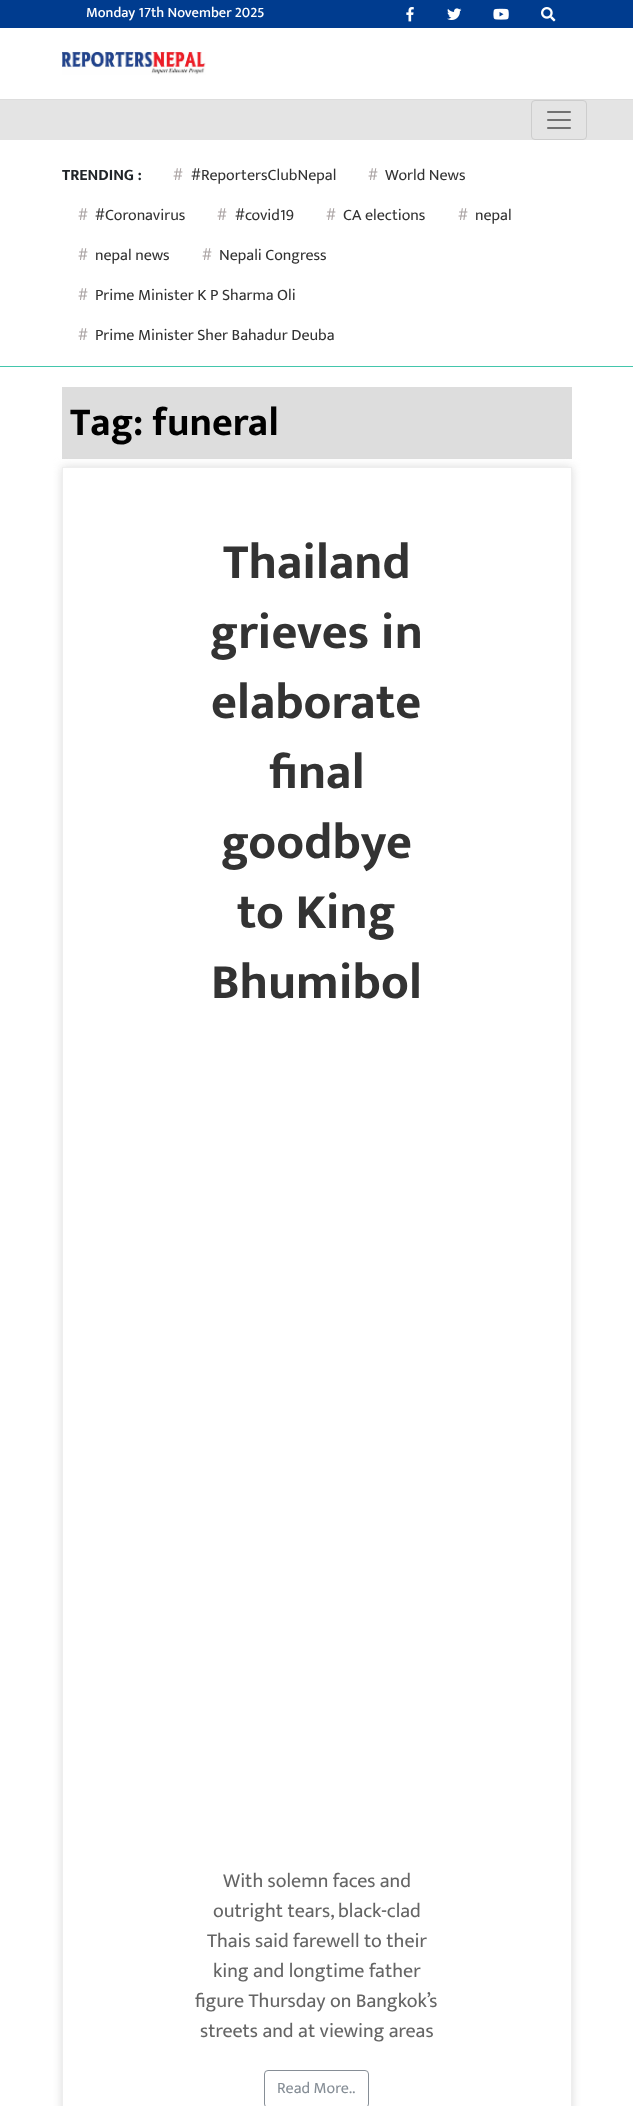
async function draw(canvas) {
	canvas.width = 633;
	canvas.height = 2106;
	const c = canvas.getContext('2d');
	c.miterLimit = 4;
	c.fontKerning = 'normal';
	async function loadImage(src) {
		const img = new Image();
		img.src = src;
		await img.decode();
		return img;
	}

	c.fillStyle = '#fff';
	c.fillRect(0, 0, 633, 2106);
	c.fillStyle = '#003c8f';
	c.fillRect(0, 0, 633, 28);
	c.font = '500 14.4px Mukta';
	c.fillStyle = '#fff';
	c.fillText('Monday 17th November 2025', 86, 17);
	c.drawImage(await loadImage('img1.png'), 406, 7, 8, 15);
	c.drawImage(await loadImage('img2.png'), 447, 8, 15, 12);
	c.drawImage(await loadImage('img3.png'), 493, 8, 16, 12);
	c.drawImage(await loadImage('img4.png'), 541, 7, 15, 15);
	c.drawImage(await loadImage('img5.png'), 62, 52, 144, 23);
	c.fillStyle = '#e4e4e4';
	c.fillRect(0, 100, 633, 40);
	c.fillStyle = '#ddd';
	c.fillRect(0, 99, 633, 1);
	c.beginPath();
	c.roundRect(531.5, 100.5, 55, 39, 3.5);
	c.strokeStyle = '#cdcdcd';
	c.stroke();
	c.drawImage(await loadImage('img6.png'), 547, 111, 24, 18);
	c.fillStyle = '#43c6ac';
	c.fillRect(0, 366, 633, 1);
	c.font = 'bold 16px Mukta';
	c.fillStyle = '#212529';
	c.fillText('TRENDING :', 62, 180);
	c.font = '16px Mukta';
	c.fillStyle = '#aba4a4';
	c.fillText('#', 173, 180);
	c.fillStyle = '#333';
	c.fillText('#ReportersClubNepal', 191, 180);
	c.fillStyle = '#aba4a4';
	c.fillText('#', 368, 180);
	c.fillStyle = '#333';
	c.fillText('World News', 385, 180);
	c.fillStyle = '#aba4a4';
	c.fillText('#', 78, 220);
	c.fillStyle = '#333';
	c.fillText('#Coronavirus', 95, 220);
	c.fillStyle = '#aba4a4';
	c.fillText('#', 217, 220);
	c.fillStyle = '#333';
	c.fillText('#covid19', 235, 220);
	c.fillStyle = '#aba4a4';
	c.fillText('#', 326, 220);
	c.fillStyle = '#333';
	c.fillText('CA elections', 343, 220);
	c.fillStyle = '#aba4a4';
	c.fillText('#', 458, 220);
	c.fillStyle = '#333';
	c.fillText('nepal', 475, 220);
	c.fillStyle = '#aba4a4';
	c.fillText('#', 78, 260);
	c.fillStyle = '#333';
	c.fillText('nepal news', 95, 260);
	c.fillStyle = '#aba4a4';
	c.fillText('#', 202, 260);
	c.fillStyle = '#333';
	c.fillText('Nepali Congress', 219, 260);
	c.fillStyle = '#aba4a4';
	c.fillText('#', 78, 300);
	c.fillStyle = '#333';
	c.fillText('Prime Minister K P Sharma Oli', 95, 300);
	c.fillStyle = '#aba4a4';
	c.fillText('#', 78, 340);
	c.fillStyle = '#333';
	c.fillText('Prime Minister Sher Bahadur Deuba', 95, 340);
	c.fillStyle = '#ddd';
	c.fillRect(62, 387, 510, 72);
	c.font = 'bold 40px Mukta';
	c.fillStyle = '#000';
	c.fillText('Tag: funeral', 70, 435);
	c.save();
	c.beginPath();
	c.moveTo(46, 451);
	c.lineTo(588, 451);
	c.lineTo(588, 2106);
	c.lineTo(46, 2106);
	c.closePath();
	c.moveTo(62, 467);
	c.lineTo(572, 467);
	c.lineTo(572, 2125);
	c.lineTo(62, 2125);
	c.closePath();
	c.clip('evenodd');
	c.fillStyle = '#dadada';
	c.filter = 'blur(5px)';
	c.beginPath();
	c.rect(62, 467, 510, 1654);
	c.fill();
	c.filter = 'none';
	c.restore();
	c.strokeStyle = '#eee';
	c.strokeRect(62.5, 467.5, 509, 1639);
	c.font = 'bold 50px Mukta';
	c.fillStyle = '#333';
	for (const [text, x, y] of [
		['Thailand', 223, 578],
		['grieves in', 210, 648],
		['elaborate', 211, 718],
		['final', 269, 788],
		['goodbye', 221, 858],
		['to King', 237, 928],
		['Bhumibol', 211, 998],
	]) {
		c.fillText(text, x, y);
	}
	c.font = '20px Mukta';
	c.fillStyle = '#656565';
	for (const [text, x, y] of [
		['With solemn faces and', 223, 1887],
		['outright tears, black-clad', 213, 1917],
		['Thais said farewell to their', 207, 1947],
		['king and longtime father', 213, 1977],
		['figure Thursday on Bangkok’s', 195, 2007],
		['streets and at viewing areas', 200, 2037],
	]) {
		c.fillText(text, x, y);
	}
	c.beginPath();
	c.roundRect(264.5, 2070.5, 104, 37, 3.5);
	c.strokeStyle = '#868e96';
	c.stroke();
	c.font = '16px Mukta';
	c.fillStyle = '#868e96';
	c.fillText('Read More..', 277, 2093);
}

draw(document.querySelector('canvas'));
